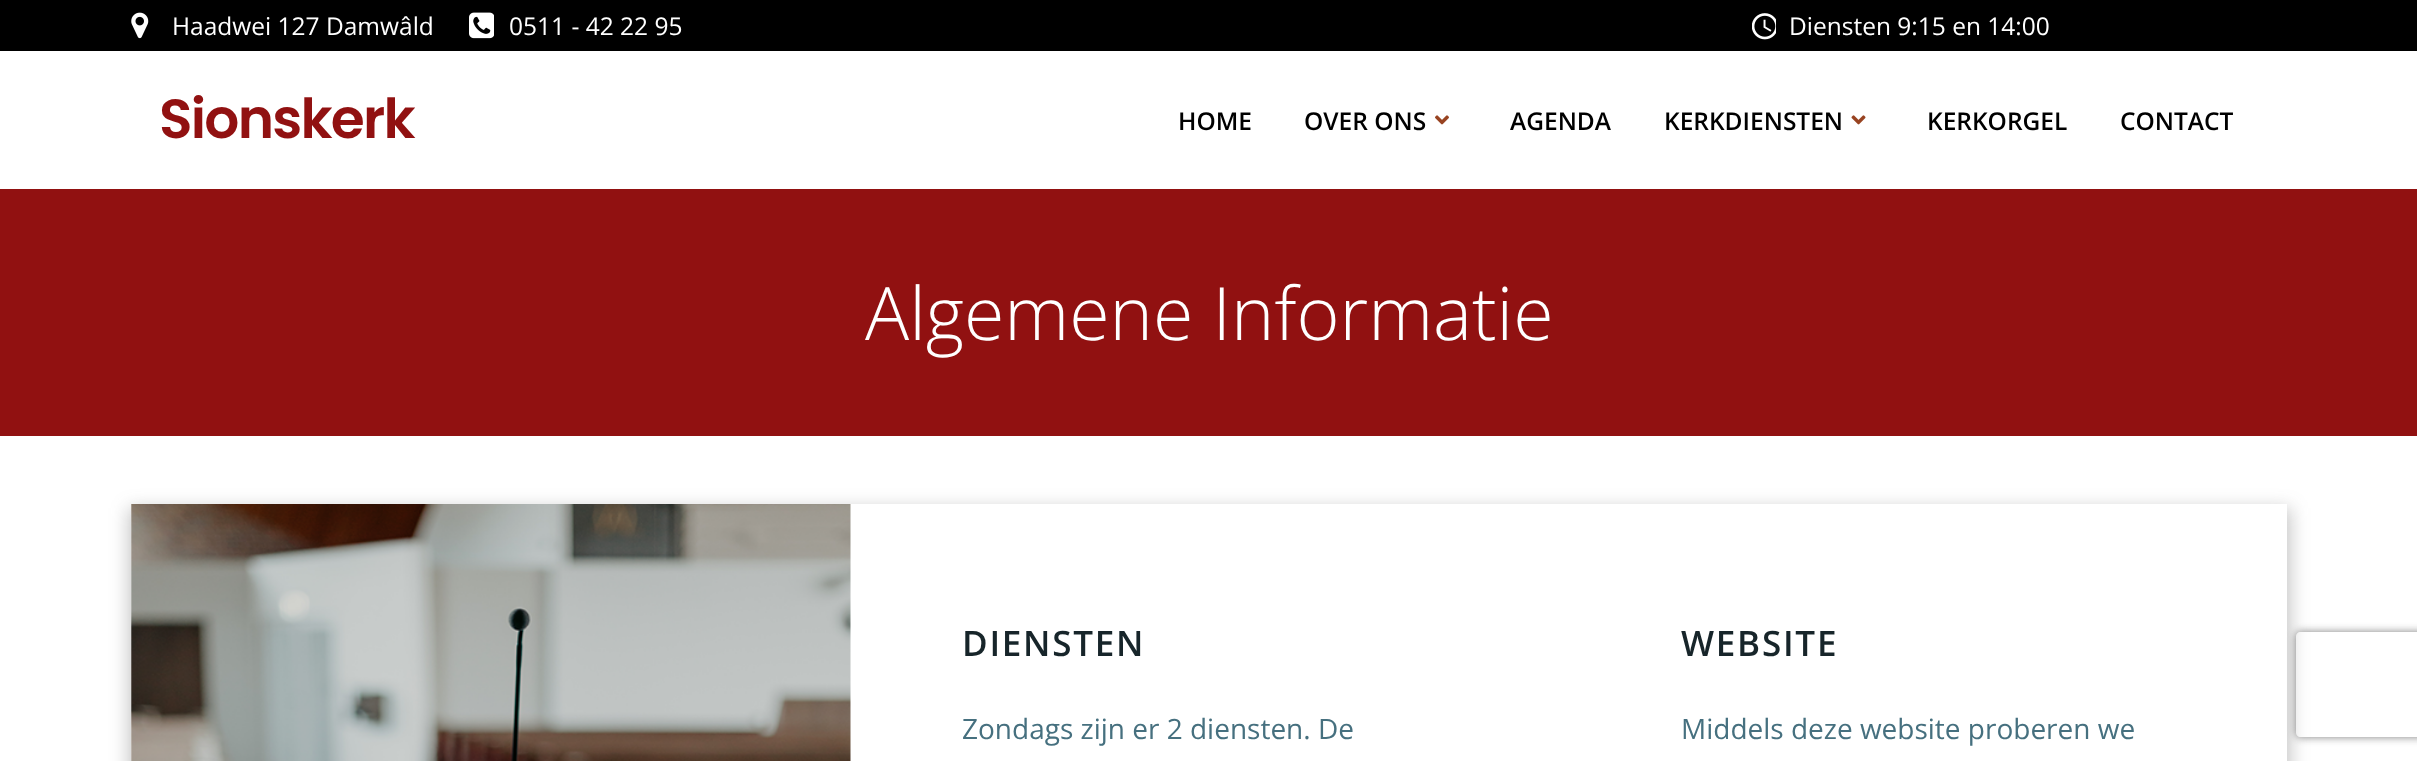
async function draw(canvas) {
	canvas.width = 2417;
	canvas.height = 761;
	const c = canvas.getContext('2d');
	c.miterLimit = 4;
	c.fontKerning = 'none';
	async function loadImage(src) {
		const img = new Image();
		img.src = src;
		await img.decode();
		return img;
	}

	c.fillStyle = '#fff';
	c.fillRect(0, 0, 2417, 761);
	c.fillStyle = '#000';
	c.fillRect(0, 0, 2417, 51);
	c.drawImage(await loadImage('img1.png'), 131, 12, 18, 27);
	c.font = '24.5px Open Sans';
	c.fillStyle = '#fff';
	c.fillText('Haadwei 127 Damwâld', 172, 35);
	c.drawImage(await loadImage('img2.png'), 469, 12, 25, 27);
	c.fillText('0511 - 42 22 95', 509, 35);
	c.drawImage(await loadImage('img3.png'), 1752, 13, 24, 27);
	c.fillText('Diensten 9:15 en 14:00', 1789, 35);
	c.letterSpacing = '-1.75px';
	c.font = '600 55px Poppins';
	c.fillStyle = '#911111';
	c.fillText('Sionskerk', 159, 138);
	c.letterSpacing = '0px';
	c.font = '600 24.5px Open Sans';
	c.fillStyle = '#000';
	c.fillText('HOME', 1178, 130);
	c.fillText('OVER ONS', 1304, 130);
	c.drawImage(await loadImage('img4.png'), 1435, 115, 14, 10);
	c.fillText('AGENDA', 1510, 130);
	c.fillText('KERKDIENSTEN', 1664, 130);
	c.drawImage(await loadImage('img5.png'), 1851, 115, 15, 10);
	c.fillText('KERKORGEL', 1927, 130);
	c.fillText('CONTACT', 2120, 130);
	c.fillStyle = '#911111';
	c.fillRect(0, 189, 2417, 247);
	c.font = '300 73.5px Open Sans';
	c.fillStyle = '#fff';
	c.fillText('Algemene Informatie', 865, 340);
	c.save();
	c.beginPath();
	c.moveTo(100, 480);
	c.lineTo(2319, 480);
	c.lineTo(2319, 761);
	c.lineTo(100, 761);
	c.closePath();
	c.moveTo(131, 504);
	c.lineTo(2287, 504);
	c.lineTo(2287, 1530);
	c.lineTo(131, 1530);
	c.closePath();
	c.clip('evenodd');
	c.fillStyle = '#4a4a4a4d';
	c.filter = 'blur(9px)';
	c.beginPath();
	c.rect(128, 508, 2163, 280);
	c.fill();
	c.filter = 'none';
	c.restore();
	c.drawImage(await loadImage('img6.png'), 131, 504, 720, 257);
	c.letterSpacing = '1.75px';
	c.font = '600 35px Open Sans';
	c.fillStyle = '#17252a';
	c.fillText('DIENSTEN', 962, 656);
	c.letterSpacing = '0px';
	c.font = '28px Open Sans';
	c.fillStyle = '#46707f';
	c.fillText('Zondags zijn er 2 diensten. De', 962, 739);
	c.letterSpacing = '1.75px';
	c.font = '600 35px Open Sans';
	c.fillStyle = '#17252a';
	c.fillText('WEBSITE', 1681, 656);
	c.letterSpacing = '0px';
	c.font = '28px Open Sans';
	c.fillStyle = '#46707f';
	c.fillText('Middels deze website proberen we', 1681, 739);
	c.save();
	c.beginPath();
	c.moveTo(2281, 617);
	c.lineTo(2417, 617);
	c.lineTo(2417, 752);
	c.lineTo(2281, 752);
	c.closePath();
	c.moveTo(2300, 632);
	c.lineTo(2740, 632);
	c.bezierCurveTo(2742, 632, 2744, 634, 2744, 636);
	c.lineTo(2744, 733);
	c.bezierCurveTo(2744, 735, 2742, 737, 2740, 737);
	c.lineTo(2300, 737);
	c.bezierCurveTo(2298, 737, 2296, 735, 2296, 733);
	c.lineTo(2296, 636);
	c.bezierCurveTo(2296, 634, 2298, 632, 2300, 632);
	c.closePath();
	c.clip('evenodd');
	c.fillStyle = '#808080';
	c.filter = 'blur(4.5px)';
	c.beginPath();
	c.roundRect(2296, 632, 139, 105, 4);
	c.fill();
	c.filter = 'none';
	c.restore();
}

draw(document.querySelector('canvas'));
